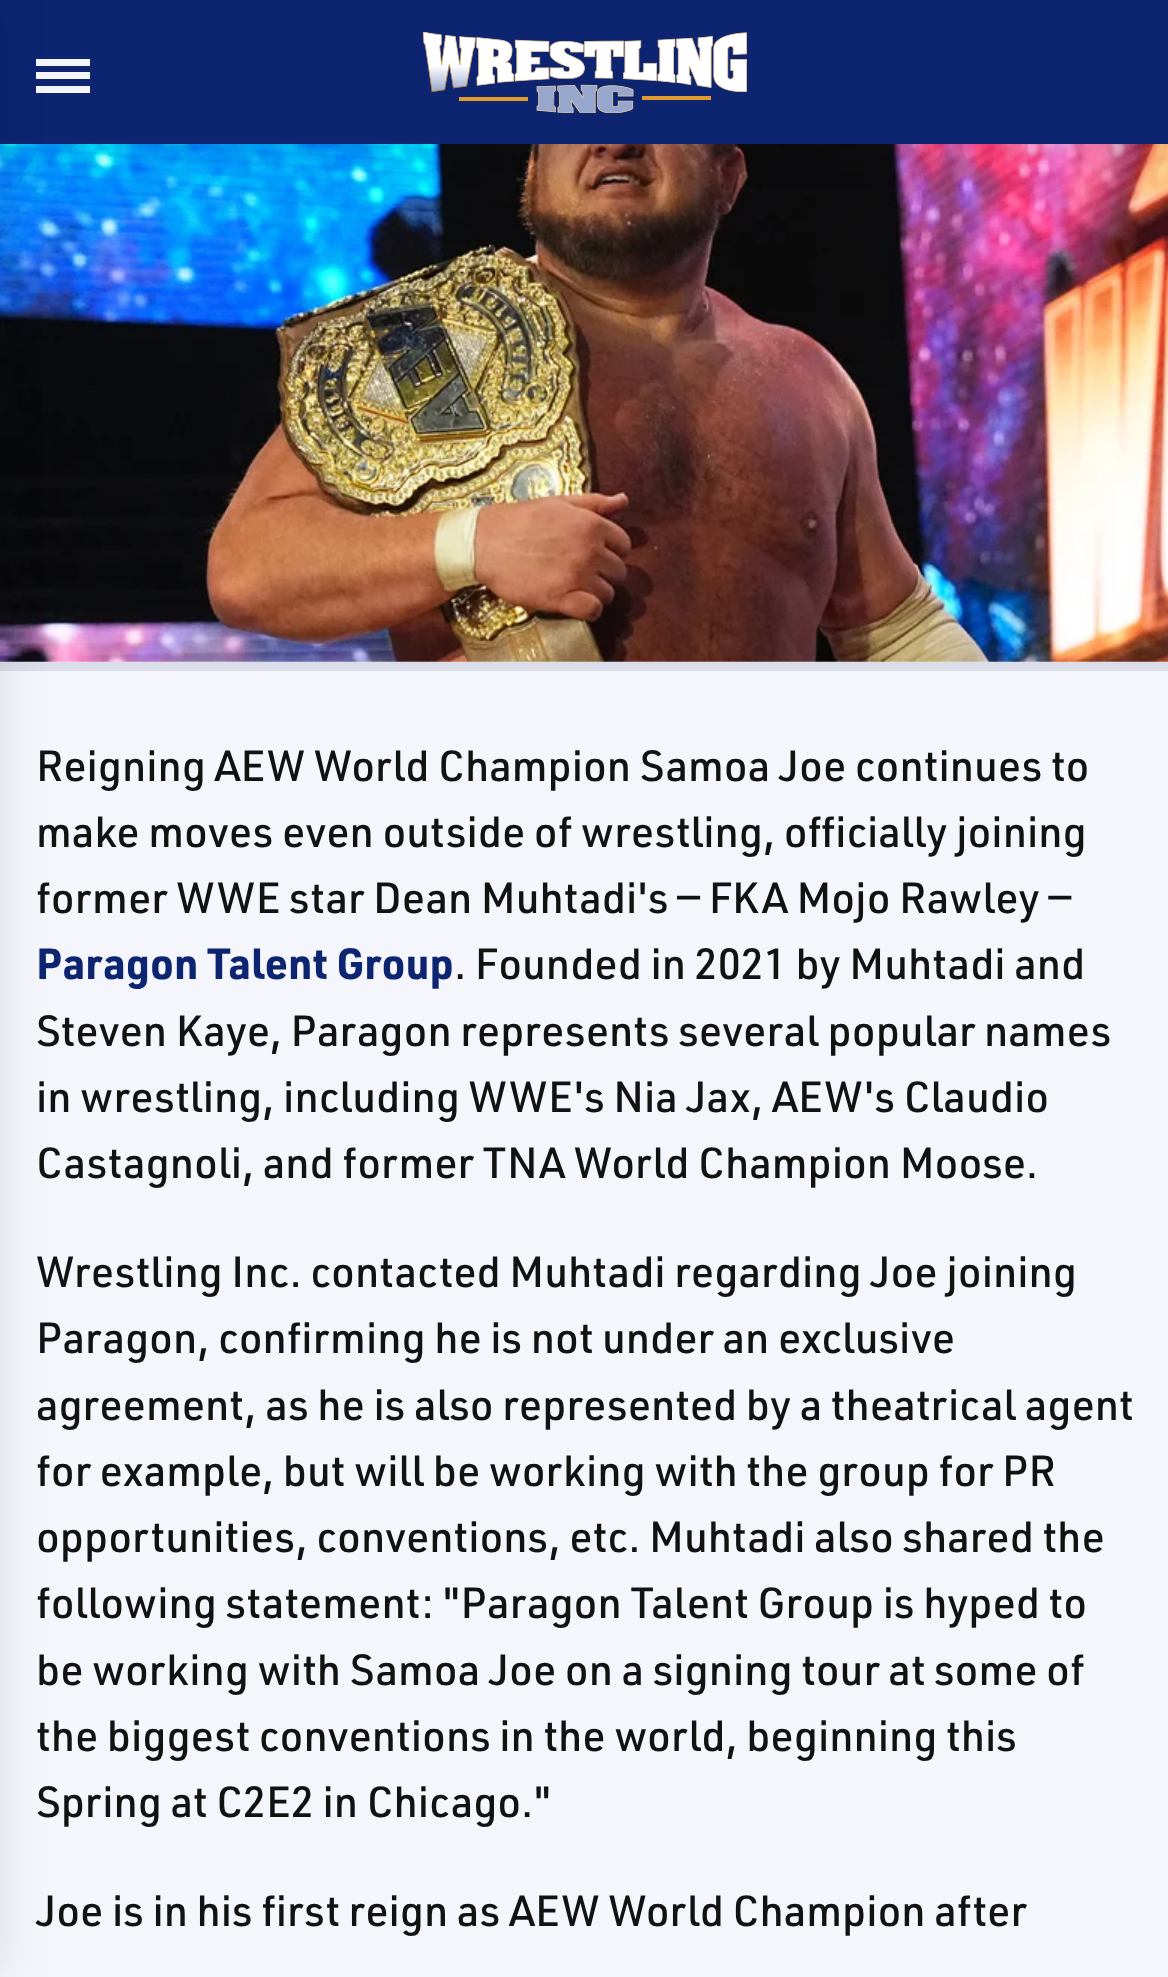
async function draw(canvas) {
	canvas.width = 1168;
	canvas.height = 1977;
	const c = canvas.getContext('2d');
	c.miterLimit = 4;
	c.fontKerning = 'normal';
	async function loadImage(src) {
		const img = new Image();
		img.src = src;
		await img.decode();
		return img;
	}

	c.fillStyle = '#f4f6fb';
	c.fillRect(0, 0, 1168, 1977);
	c.drawImage(await loadImage('img2.png'), 0, 144, 1168, 518);
	c.fillStyle = '#0000001a';
	c.filter = 'blur(22.5px)';
	c.beginPath();
	c.rect(0, 0, 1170, 144);
	c.fill();
	c.filter = 'none';
	for (const [x, y, w, h, color] of [
		[0, 0, 1168, 144, '#0d2571'],
		[36, 59, 54, 7, '#f4f6fb'],
		[36, 72, 54, 7, '#f4f6fb'],
		[36, 86, 54, 7, '#f4f6fb'],
		[0, 662, 1168, 9, '#dbdee8'],
	]) {
		c.fillStyle = color;
		c.fillRect(x, y, w, h);
	}
	c.fillStyle = '#0000001a';
	c.filter = 'blur(22.5px)';
	c.beginPath();
	c.rect(-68, 0, 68, 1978);
	c.fill();
	c.filter = 'none';
	c.drawImage(await loadImage('img1.png'), 423, 32, 324, 81);
	c.font = '500 42.75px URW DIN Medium';
	c.fillStyle = '#121212';
	for (const [text, x, y] of [
		['Reigning AEW World Champion Samoa Joe continues to', 36, 781],
		['make moves even outside of wrestling, officially joining', 36, 847],
		['former WWE star Dean Muhtadi\'s — FKA Mojo Rawley —', 36, 913],
	]) {
		c.fillText(text, x, y);
	}
	c.font = 'bold 42.75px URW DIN';
	c.fillStyle = '#0d2571';
	c.fillText('Paragon Talent Group', 36, 979);
	c.font = '500 42.75px URW DIN Medium';
	c.fillStyle = '#121212';
	for (const [text, x, y] of [
		['. Founded in 2021 by Muhtadi and', 454, 979],
		['Steven Kaye, Paragon represents several popular names', 36, 1046],
		['in wrestling, including WWE\'s Nia Jax, AEW\'s Claudio', 36, 1112],
		['Castagnoli, and former TNA World Champion Moose.', 36, 1178],
		['Wrestling Inc. contacted Muhtadi regarding Joe joining', 36, 1287],
		['Paragon, confirming he is not under an exclusive', 36, 1353],
		['agreement, as he is also represented by a theatrical agent', 36, 1420],
		['for example, but will be working with the group for PR', 36, 1486],
		['opportunities, conventions, etc. Muhtadi also shared the', 36, 1552],
		['following statement: "Paragon Talent Group is hyped to', 36, 1618],
		['be working with Samoa Joe on a signing tour at some of', 36, 1685],
		['the biggest conventions in the world, beginning this', 36, 1751],
		['Spring at C2E2 in Chicago."', 36, 1817],
		['Joe is in his first reign as AEW World Champion after', 36, 1926],
	]) {
		c.fillText(text, x, y);
	}
}

draw(document.querySelector('canvas'));
